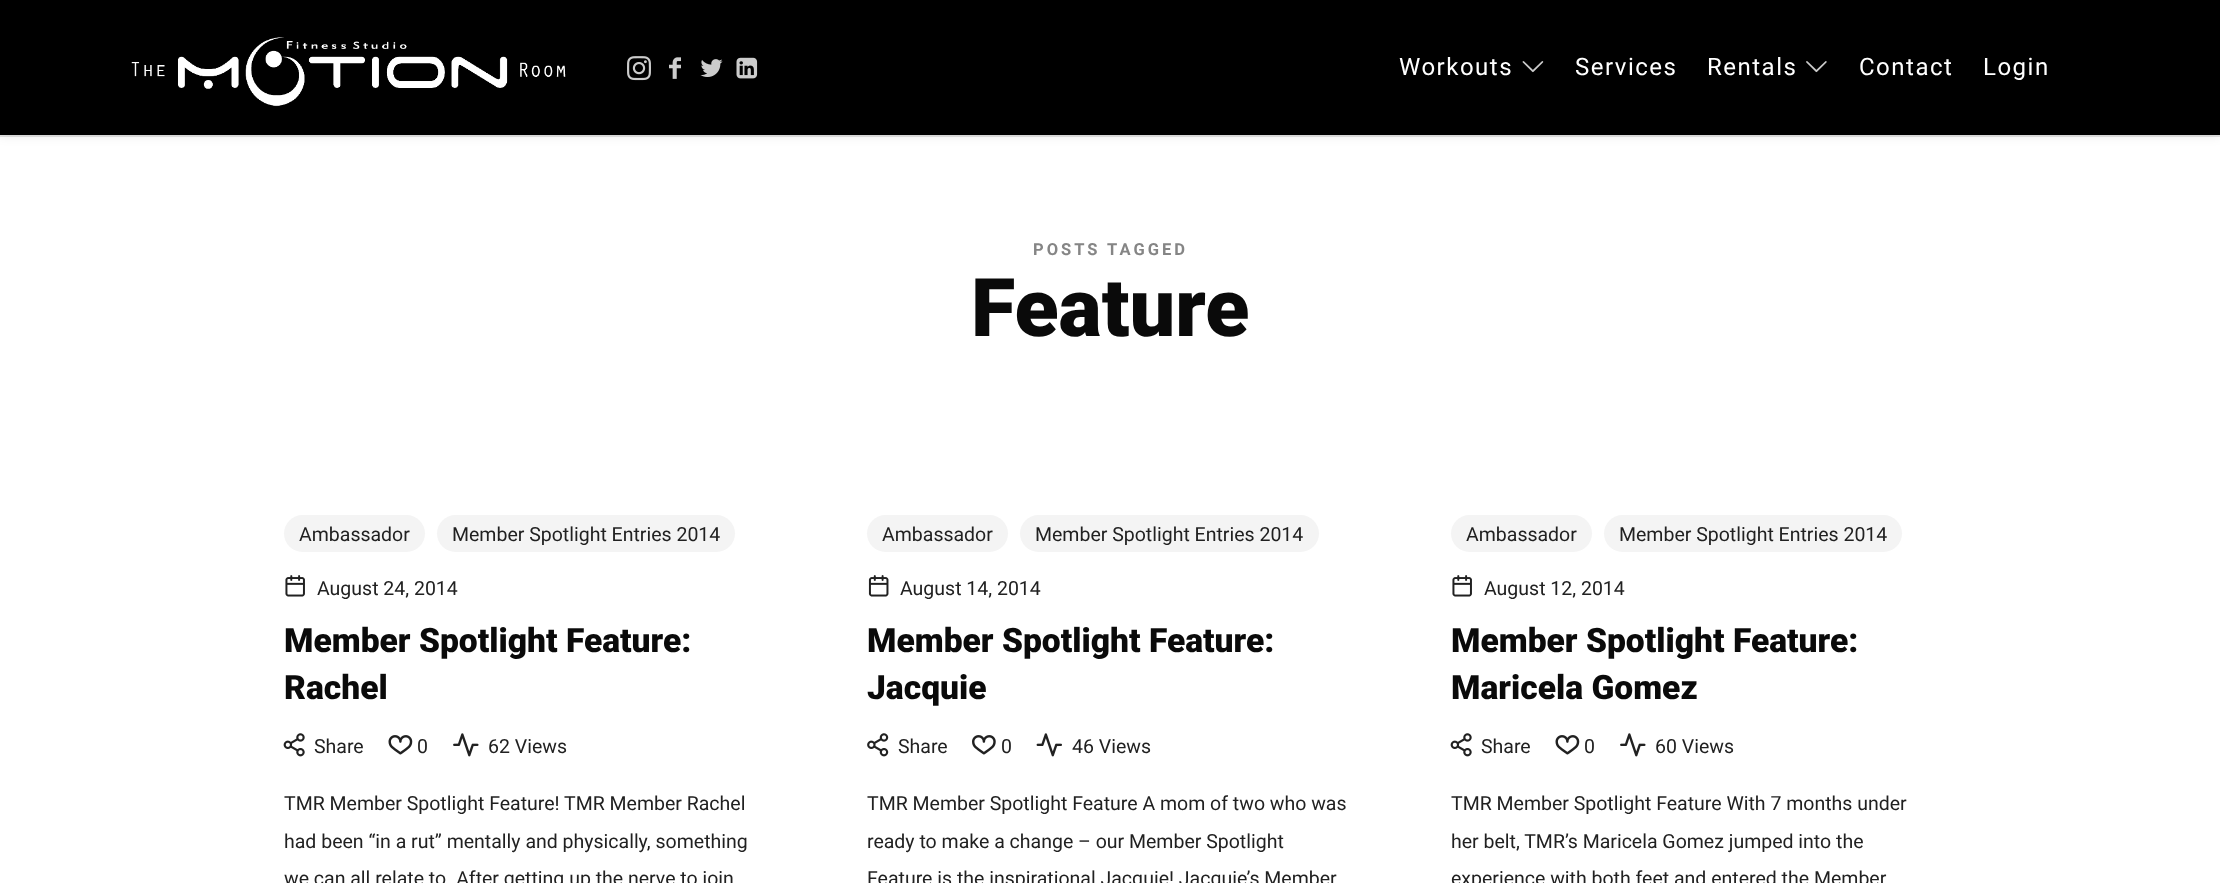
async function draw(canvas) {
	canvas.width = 2220;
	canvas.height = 883;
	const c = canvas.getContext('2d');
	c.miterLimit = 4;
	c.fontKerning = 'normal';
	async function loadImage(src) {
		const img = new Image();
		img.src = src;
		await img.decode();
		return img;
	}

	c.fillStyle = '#fff';
	c.fillRect(0, 0, 2220, 883);
	c.fillStyle = '#e2e2e2';
	c.fillRect(0, 135, 2220, 2);
	c.fillStyle = '#0000001a';
	c.filter = 'blur(6px)';
	c.beginPath();
	c.rect(0, 0, 2220, 135);
	c.fill();
	c.filter = 'none';
	c.fillStyle = '#000';
	c.fillRect(0, 0, 2220, 135);
	c.drawImage(await loadImage('img1.png'), 131, 37, 435, 70);
	c.drawImage(await loadImage('img2.png'), 627, 56, 24, 25);
	c.drawImage(await loadImage('img3.png'), 669, 57, 12, 22);
	c.drawImage(await loadImage('img4.png'), 700, 59, 23, 18);
	c.drawImage(await loadImage('img5.png'), 736, 57, 22, 22);
	c.letterSpacing = '1.5px';
	c.font = '24px Roboto';
	c.fillStyle = '#fff';
	c.fillText('Workouts', 1399, 75);
	c.drawImage(await loadImage('img6.png'), 1522, 61, 22, 12);
	c.fillText('Services', 1575, 75);
	c.fillText('Rentals', 1707, 75);
	c.drawImage(await loadImage('img7.png'), 1806, 61, 21, 12);
	c.fillText('Contact', 1859, 75);
	c.fillText('Login', 1983, 75);
	c.letterSpacing = '3px';
	c.font = 'bold 16.5px Roboto';
	c.fillStyle = '#858585';
	c.fillText('POSTS TAGGED', 1033, 255);
	c.letterSpacing = '0px';
	c.font = '900 81px Roboto';
	c.fillStyle = '#0a0a0a';
	c.fillText('Feature', 971, 336);
	c.fillStyle = '#f4f4f4';
	c.beginPath();
	c.roundRect(284, 515, 141, 37, 18.5);
	c.fill();
	c.font = '19.5px Roboto';
	c.fillStyle = '#212121';
	c.fillText('Ambassador', 299, 541);
	c.fillStyle = '#f4f4f4';
	c.beginPath();
	c.roundRect(437, 515, 298, 37, 18.5);
	c.fill();
	c.fillStyle = '#212121';
	c.fillText('Member Spotlight Entries 2014', 452, 541);
	c.drawImage(await loadImage('img8.png'), 285, 575, 20, 22);
	c.fillText('August 24, 2014', 317, 595);
	c.font = '900 33.6px Roboto';
	c.fillStyle = '#0a0a0a';
	c.fillText('Member Spotlight Feature:', 284, 652);
	c.fillText('Rachel', 284, 699);
	c.drawImage(await loadImage('img9.png'), 283, 733, 22, 24);
	c.font = '19.5px Roboto';
	c.fillStyle = '#212121';
	c.fillText('Share', 314, 753);
	c.drawImage(await loadImage('img10.png'), 388, 735, 25, 20);
	c.fillText('0', 417, 753);
	c.drawImage(await loadImage('img11.png'), 453, 733, 26, 24);
	for (const [text, x, y] of [
		['62 Views', 488, 753],
		['TMR Member Spotlight Feature! TMR Member Rachel', 284, 810],
		['had been “in a rut” mentally and physically, something', 284, 848],
		['we can all relate to. After getting up the nerve to join', 284, 885],
	]) {
		c.fillText(text, x, y);
	}
	c.fillStyle = '#f4f4f4';
	c.beginPath();
	c.roundRect(867, 515, 141, 37, 18.5);
	c.fill();
	c.fillStyle = '#212121';
	c.fillText('Ambassador', 882, 541);
	c.fillStyle = '#f4f4f4';
	c.beginPath();
	c.roundRect(1020, 515, 299, 37, 18.5);
	c.fill();
	c.fillStyle = '#212121';
	c.fillText('Member Spotlight Entries 2014', 1035, 541);
	c.drawImage(await loadImage('img12.png'), 868, 575, 21, 22);
	c.fillText('August 14, 2014', 900, 595);
	c.font = '900 33.6px Roboto';
	c.fillStyle = '#0a0a0a';
	c.fillText('Member Spotlight Feature:', 867, 652);
	c.fillText('Jacquie', 867, 699);
	c.drawImage(await loadImage('img13.png'), 867, 733, 22, 24);
	c.font = '19.5px Roboto';
	c.fillStyle = '#212121';
	c.fillText('Share', 898, 753);
	c.drawImage(await loadImage('img14.png'), 972, 735, 24, 20);
	c.fillText('0', 1001, 753);
	c.drawImage(await loadImage('img15.png'), 1036, 733, 26, 24);
	for (const [text, x, y] of [
		['46 Views', 1072, 753],
		['TMR Member Spotlight Feature A mom of two who was', 867, 810],
		['ready to make a change – our Member Spotlight', 867, 848],
		['Feature is the inspirational Jacquie! Jacquie’s Member', 867, 885],
	]) {
		c.fillText(text, x, y);
	}
	c.fillStyle = '#f4f4f4';
	c.beginPath();
	c.roundRect(1451, 515, 141, 37, 18.5);
	c.fill();
	c.fillStyle = '#212121';
	c.fillText('Ambassador', 1466, 541);
	c.fillStyle = '#f4f4f4';
	c.beginPath();
	c.roundRect(1604, 515, 298, 37, 18.5);
	c.fill();
	c.fillStyle = '#212121';
	c.fillText('Member Spotlight Entries 2014', 1619, 541);
	c.drawImage(await loadImage('img8.png'), 1452, 575, 20, 22);
	c.fillText('August 12, 2014', 1484, 595);
	c.font = '900 33.6px Roboto';
	c.fillStyle = '#0a0a0a';
	c.fillText('Member Spotlight Feature:', 1451, 652);
	c.fillText('Maricela Gomez', 1451, 699);
	c.drawImage(await loadImage('img9.png'), 1450, 733, 22, 24);
	c.font = '19.5px Roboto';
	c.fillStyle = '#212121';
	c.fillText('Share', 1481, 753);
	c.drawImage(await loadImage('img10.png'), 1555, 735, 25, 20);
	c.fillText('0', 1584, 753);
	c.drawImage(await loadImage('img11.png'), 1620, 733, 26, 24);
	for (const [text, x, y] of [
		['60 Views', 1655, 753],
		['TMR Member Spotlight Feature With 7 months under', 1451, 810],
		['her belt, TMR’s Maricela Gomez jumped into the', 1451, 848],
		['experience with both feet and entered the Member', 1451, 885],
	]) {
		c.fillText(text, x, y);
	}
}

draw(document.querySelector('canvas'));
